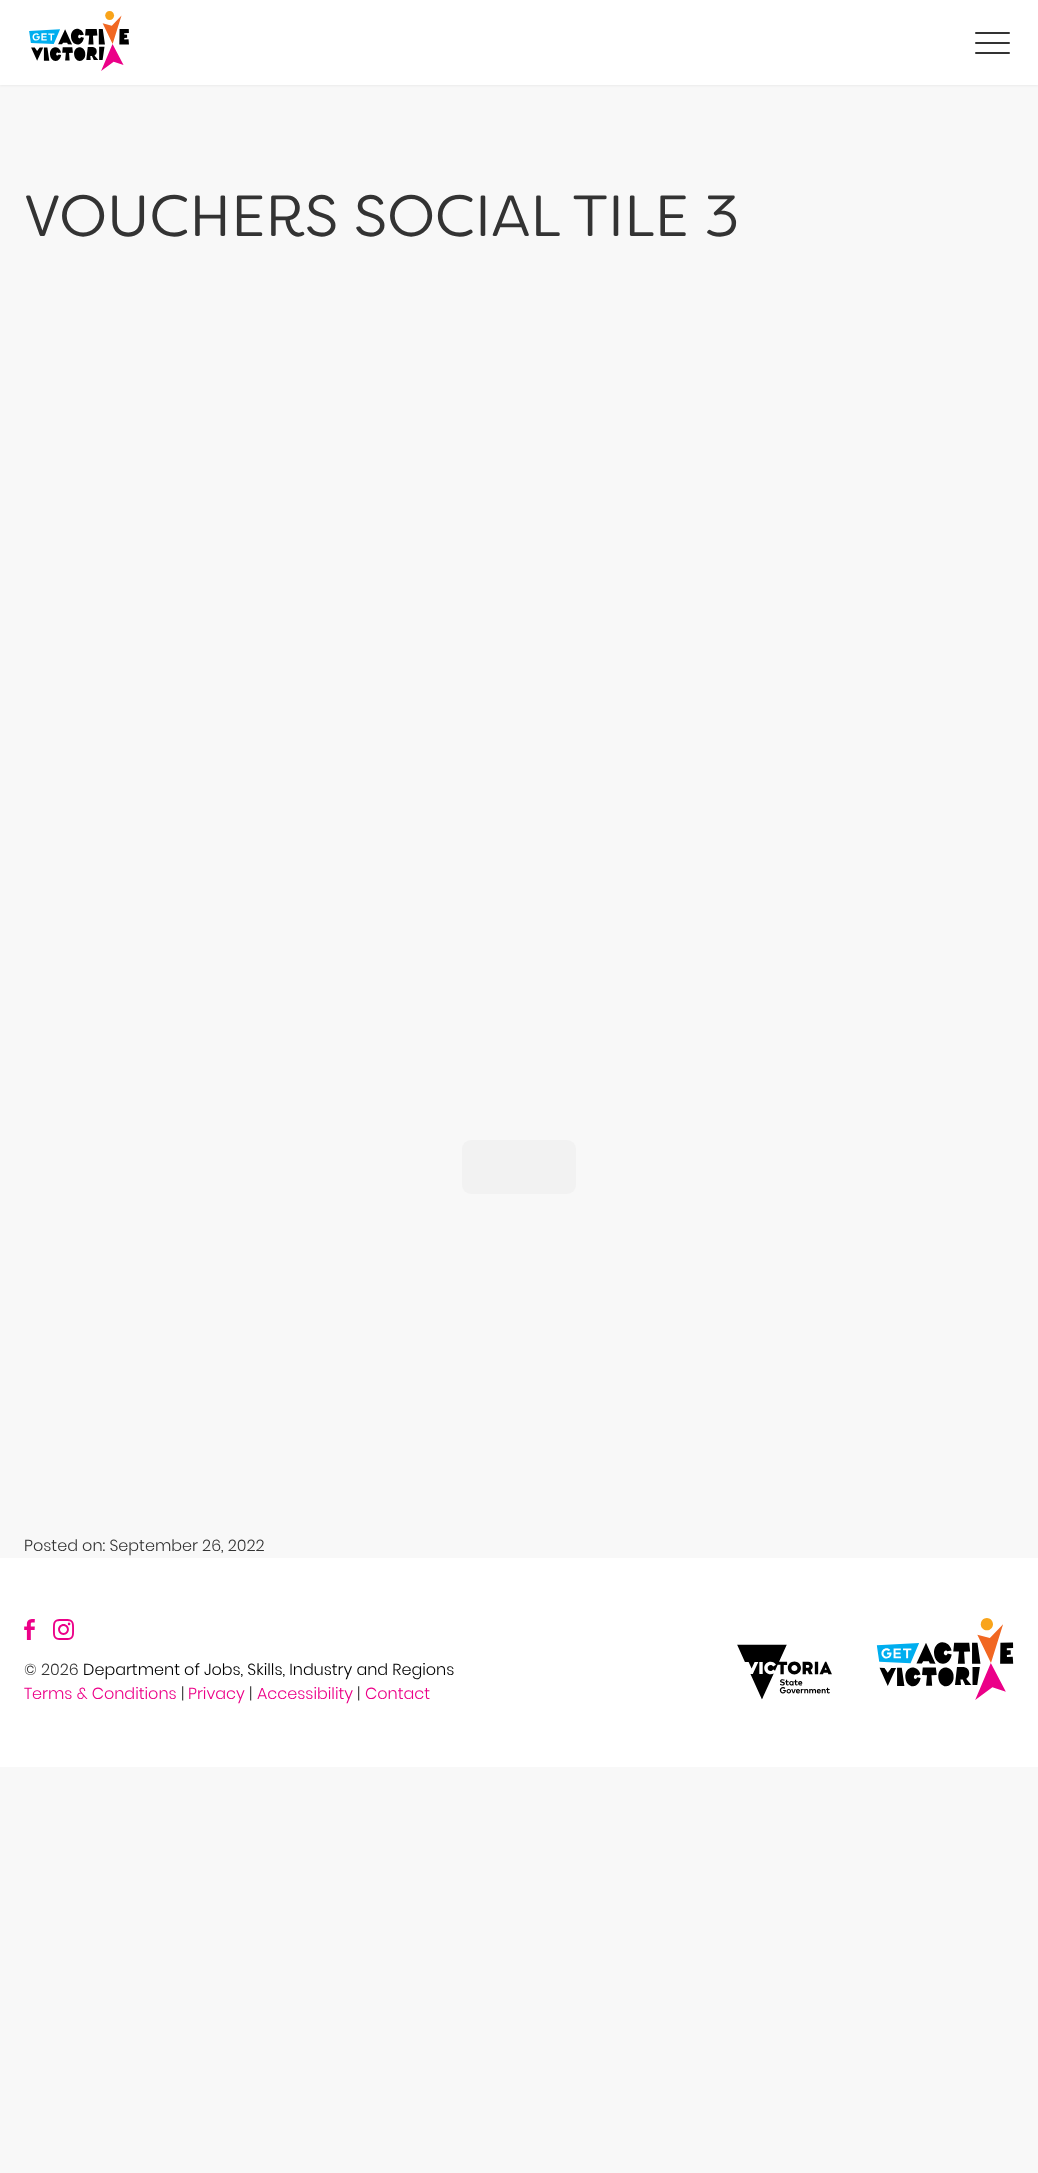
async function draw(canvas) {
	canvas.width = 1038;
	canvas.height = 2173;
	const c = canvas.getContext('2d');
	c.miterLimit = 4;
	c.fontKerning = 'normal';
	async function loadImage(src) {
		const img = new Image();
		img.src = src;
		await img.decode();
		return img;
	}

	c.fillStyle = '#f8f8f8';
	c.fillRect(0, 0, 1038, 2173);
	c.fillStyle = '#0000000d';
	c.filter = 'blur(1px)';
	c.beginPath();
	c.rect(0, 1, 1038, 85);
	c.fill();
	c.filter = 'none';
	c.fillStyle = '#fff';
	c.fillRect(0, 0, 1038, 85);
	c.drawImage(await loadImage('img1.png'), 29, 11, 100, 60);
	c.fillStyle = '#333';
	c.beginPath();
	c.roundRect(975, 32, 35, 2, 1);
	c.fill();
	c.beginPath();
	c.roundRect(975, 42, 35, 2, 1);
	c.fill();
	c.beginPath();
	c.roundRect(975, 52, 35, 2, 1);
	c.fill();
	c.font = '58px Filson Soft';
	c.fillText('VOUCHERS SOCIAL TILE 3', 24, 236);
	c.font = '300 16px Poppins';
	c.fillText('Posted on: September 26, 2022', 24, 1551);
	c.fillStyle = '#f2f2f2';
	c.beginPath();
	c.roundRect(462, 1140, 114, 54, 9);
	c.fill();
	c.fillStyle = '#fff';
	c.fillRect(0, 1558, 1038, 209);
	c.drawImage(await loadImage('img2.png'), 24, 1619, 11, 21);
	c.drawImage(await loadImage('img3.png'), 53, 1619, 21, 21);
	c.fillStyle = '#333';
	c.fillText('© 2026', 24, 1675);
	c.fillStyle = '#000';
	c.fillText('Department of Jobs, Skills, Industry and Regions', 83, 1675);
	c.fillStyle = '#ec0088';
	c.fillText('Terms & Conditions', 24, 1699);
	c.fillStyle = '#333';
	c.fillText('|', 181, 1699);
	c.fillStyle = '#ec0088';
	c.fillText('Privacy', 188, 1699);
	c.fillStyle = '#333';
	c.fillText('|', 249, 1699);
	c.fillStyle = '#ec0088';
	c.fillText('Accessibility', 257, 1699);
	c.fillStyle = '#333';
	c.fillText('|', 357, 1699);
	c.fillStyle = '#ec0088';
	c.fillText('Contact', 365, 1699);
	c.drawImage(await loadImage('img4.png'), 737, 1644, 95, 56);
	c.drawImage(await loadImage('img5.png'), 876, 1618, 138, 82);
}

draw(document.querySelector('canvas'));
